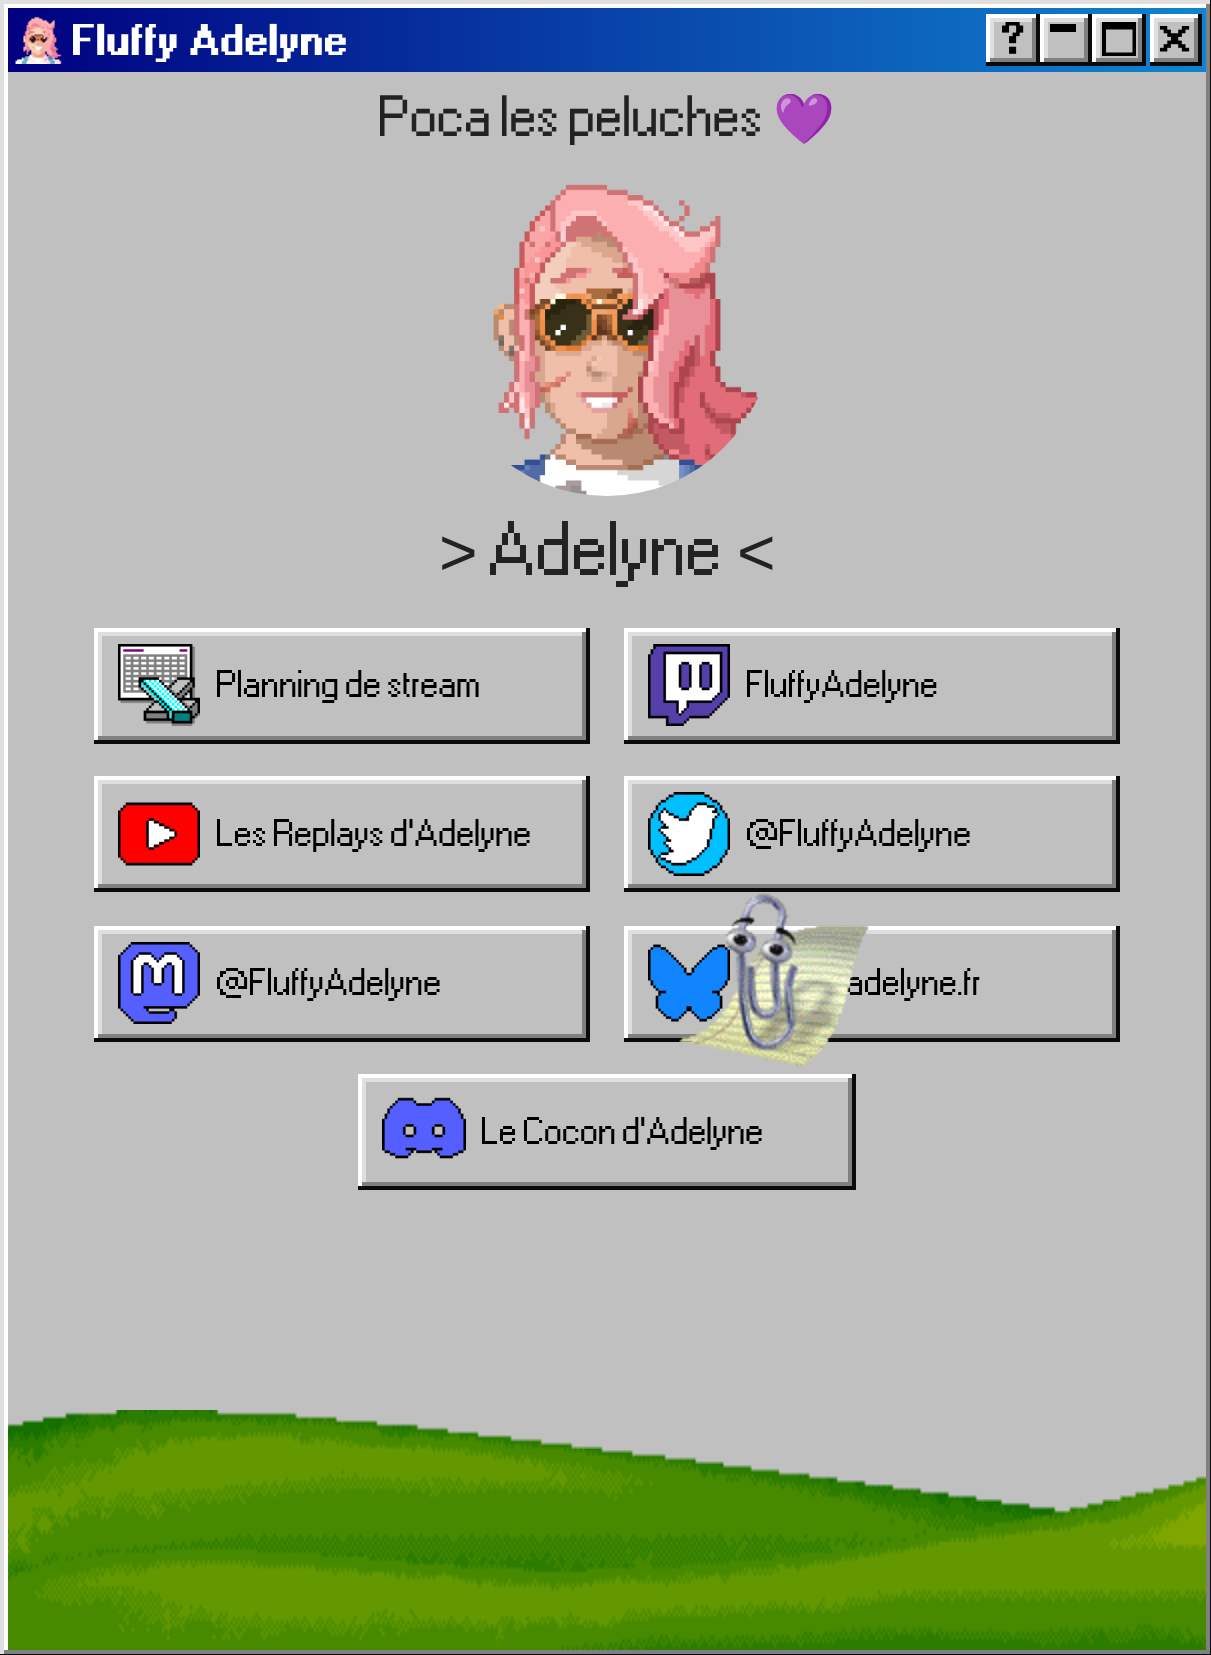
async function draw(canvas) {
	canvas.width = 1211;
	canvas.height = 1655;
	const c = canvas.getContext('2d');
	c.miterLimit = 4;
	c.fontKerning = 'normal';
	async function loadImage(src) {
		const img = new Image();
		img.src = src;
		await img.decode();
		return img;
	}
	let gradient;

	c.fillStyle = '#c0c0c0';
	c.fillRect(0, 0, 1211, 1655);
	c.drawImage(await loadImage('img1.png'), 8, 1410, 1198, 240);
	c.fillStyle = '#fff';
	c.beginPath();
	c.moveTo(-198, -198);
	c.lineTo(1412, -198);
	c.lineTo(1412, 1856);
	c.lineTo(-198, 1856);
	c.closePath();
	c.moveTo(8, 8);
	c.lineTo(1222, 8);
	c.lineTo(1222, 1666);
	c.lineTo(8, 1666);
	c.closePath();
	c.fill('evenodd');
	c.fillStyle = '#808080';
	c.beginPath();
	c.moveTo(-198, -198);
	c.lineTo(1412, -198);
	c.lineTo(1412, 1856);
	c.lineTo(-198, 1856);
	c.closePath();
	c.moveTo(-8, -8);
	c.lineTo(1206, -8);
	c.lineTo(1206, 1650);
	c.lineTo(-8, 1650);
	c.closePath();
	c.fill('evenodd');
	c.fillStyle = '#dfdfdf';
	c.beginPath();
	c.moveTo(-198, -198);
	c.lineTo(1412, -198);
	c.lineTo(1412, 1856);
	c.lineTo(-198, 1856);
	c.closePath();
	c.moveTo(4, 4);
	c.lineTo(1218, 4);
	c.lineTo(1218, 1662);
	c.lineTo(4, 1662);
	c.closePath();
	c.fill('evenodd');
	c.fillStyle = '#0a0a0a';
	c.beginPath();
	c.moveTo(-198, -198);
	c.lineTo(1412, -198);
	c.lineTo(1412, 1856);
	c.lineTo(-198, 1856);
	c.closePath();
	c.moveTo(-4, -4);
	c.lineTo(1210, -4);
	c.lineTo(1210, 1654);
	c.lineTo(-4, 1654);
	c.closePath();
	c.fill('evenodd');
	gradient = c.createLinearGradient(8, 40, 1206, 40);
	gradient.addColorStop(0, '#000080');
	gradient.addColorStop(1, '#1084d0');
	c.fillStyle = gradient;
	c.fillRect(8, 8, 1198, 64);
	c.drawImage(await loadImage('img2.png'), 15, 16, 47, 48);
	c.font = 'bold 38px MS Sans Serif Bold';
	c.fillStyle = '#fff';
	c.fillText('Fluffy Adelyne', 73, 55);
	c.fillStyle = '#c0c0c0';
	c.fillRect(994, 22, 38, 36);
	c.drawImage(await loadImage('img3.png'), 1002, 22, 22, 32);
	c.save();
	c.beginPath();
	c.rect(986, 14, 54, 52);
	c.clip();
	c.fillStyle = '#dfdfdf';
	c.beginPath();
	c.moveTo(788, -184);
	c.lineTo(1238, -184);
	c.lineTo(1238, 264);
	c.lineTo(788, 264);
	c.closePath();
	c.moveTo(994, 22);
	c.lineTo(1048, 22);
	c.lineTo(1048, 74);
	c.lineTo(994, 74);
	c.closePath();
	c.fill('evenodd');
	c.fillStyle = '#808080';
	c.beginPath();
	c.moveTo(788, -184);
	c.lineTo(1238, -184);
	c.lineTo(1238, 264);
	c.lineTo(788, 264);
	c.closePath();
	c.moveTo(978, 6);
	c.lineTo(1032, 6);
	c.lineTo(1032, 58);
	c.lineTo(978, 58);
	c.closePath();
	c.fill('evenodd');
	c.fillStyle = '#fff';
	c.beginPath();
	c.moveTo(788, -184);
	c.lineTo(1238, -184);
	c.lineTo(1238, 264);
	c.lineTo(788, 264);
	c.closePath();
	c.moveTo(990, 18);
	c.lineTo(1044, 18);
	c.lineTo(1044, 70);
	c.lineTo(990, 70);
	c.closePath();
	c.fill('evenodd');
	c.fillStyle = '#0a0a0a';
	c.beginPath();
	c.moveTo(788, -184);
	c.lineTo(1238, -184);
	c.lineTo(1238, 264);
	c.lineTo(788, 264);
	c.closePath();
	c.moveTo(982, 10);
	c.lineTo(1036, 10);
	c.lineTo(1036, 62);
	c.lineTo(982, 62);
	c.closePath();
	c.fill('evenodd');
	c.restore();
	c.fillRect(1048, 22, 36, 36);
	c.fillStyle = '#000';
	c.fillRect(1050, 24, 26, 8);
	c.save();
	c.beginPath();
	c.rect(1040, 14, 52, 52);
	c.clip();
	c.fillStyle = '#dfdfdf';
	c.beginPath();
	c.moveTo(842, -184);
	c.lineTo(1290, -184);
	c.lineTo(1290, 264);
	c.lineTo(842, 264);
	c.closePath();
	c.moveTo(1048, 22);
	c.lineTo(1100, 22);
	c.lineTo(1100, 74);
	c.lineTo(1048, 74);
	c.closePath();
	c.fill('evenodd');
	c.fillStyle = '#808080';
	c.beginPath();
	c.moveTo(842, -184);
	c.lineTo(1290, -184);
	c.lineTo(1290, 264);
	c.lineTo(842, 264);
	c.closePath();
	c.moveTo(1032, 6);
	c.lineTo(1084, 6);
	c.lineTo(1084, 58);
	c.lineTo(1032, 58);
	c.closePath();
	c.fill('evenodd');
	c.fillStyle = '#fff';
	c.beginPath();
	c.moveTo(842, -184);
	c.lineTo(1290, -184);
	c.lineTo(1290, 264);
	c.lineTo(842, 264);
	c.closePath();
	c.moveTo(1044, 18);
	c.lineTo(1096, 18);
	c.lineTo(1096, 70);
	c.lineTo(1044, 70);
	c.closePath();
	c.fill('evenodd');
	c.fillStyle = '#0a0a0a';
	c.beginPath();
	c.moveTo(842, -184);
	c.lineTo(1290, -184);
	c.lineTo(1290, 264);
	c.lineTo(842, 264);
	c.closePath();
	c.moveTo(1036, 10);
	c.lineTo(1088, 10);
	c.lineTo(1088, 62);
	c.lineTo(1036, 62);
	c.closePath();
	c.fill('evenodd');
	c.restore();
	c.fillStyle = '#c0c0c0';
	c.fillRect(1100, 22, 38, 36);
	c.save();
	c.beginPath();
	c.rect(1102, 22, 34, 34);
	c.clip();
	c.fillStyle = '#000';
	c.beginPath();
	c.moveTo(1136.5, 22);
	c.lineTo(1102, 22);
	c.lineTo(1102, 56.5);
	c.lineTo(1136.5, 56.5);
	c.closePath();
	c.moveTo(1132.5, 29.5);
	c.lineTo(1106, 29.5);
	c.lineTo(1106, 52.5);
	c.lineTo(1132.5, 52.5);
	c.closePath();
	c.fill('evenodd');
	c.restore();
	c.save();
	c.beginPath();
	c.rect(1092, 14, 54, 52);
	c.clip();
	c.fillStyle = '#dfdfdf';
	c.beginPath();
	c.moveTo(894, -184);
	c.lineTo(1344, -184);
	c.lineTo(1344, 264);
	c.lineTo(894, 264);
	c.closePath();
	c.moveTo(1100, 22);
	c.lineTo(1154, 22);
	c.lineTo(1154, 74);
	c.lineTo(1100, 74);
	c.closePath();
	c.fill('evenodd');
	c.fillStyle = '#808080';
	c.beginPath();
	c.moveTo(894, -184);
	c.lineTo(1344, -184);
	c.lineTo(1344, 264);
	c.lineTo(894, 264);
	c.closePath();
	c.moveTo(1084, 6);
	c.lineTo(1138, 6);
	c.lineTo(1138, 58);
	c.lineTo(1084, 58);
	c.closePath();
	c.fill('evenodd');
	c.fillStyle = '#fff';
	c.beginPath();
	c.moveTo(894, -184);
	c.lineTo(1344, -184);
	c.lineTo(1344, 264);
	c.lineTo(894, 264);
	c.closePath();
	c.moveTo(1096, 18);
	c.lineTo(1150, 18);
	c.lineTo(1150, 70);
	c.lineTo(1096, 70);
	c.closePath();
	c.fill('evenodd');
	c.fillStyle = '#0a0a0a';
	c.beginPath();
	c.moveTo(894, -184);
	c.lineTo(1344, -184);
	c.lineTo(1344, 264);
	c.lineTo(894, 264);
	c.closePath();
	c.moveTo(1088, 10);
	c.lineTo(1142, 10);
	c.lineTo(1142, 62);
	c.lineTo(1088, 62);
	c.closePath();
	c.fill('evenodd');
	c.restore();
	c.fillRect(1158, 22, 36, 36);
	c.drawImage(await loadImage('img4.png'), 1160, 26, 30, 26);
	c.save();
	c.beginPath();
	c.rect(1150, 14, 52, 52);
	c.clip();
	c.fillStyle = '#dfdfdf';
	c.beginPath();
	c.moveTo(952, -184);
	c.lineTo(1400, -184);
	c.lineTo(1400, 264);
	c.lineTo(952, 264);
	c.closePath();
	c.moveTo(1158, 22);
	c.lineTo(1210, 22);
	c.lineTo(1210, 74);
	c.lineTo(1158, 74);
	c.closePath();
	c.fill('evenodd');
	c.fillStyle = '#808080';
	c.beginPath();
	c.moveTo(952, -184);
	c.lineTo(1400, -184);
	c.lineTo(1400, 264);
	c.lineTo(952, 264);
	c.closePath();
	c.moveTo(1142, 6);
	c.lineTo(1194, 6);
	c.lineTo(1194, 58);
	c.lineTo(1142, 58);
	c.closePath();
	c.fill('evenodd');
	c.fillStyle = '#fff';
	c.beginPath();
	c.moveTo(952, -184);
	c.lineTo(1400, -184);
	c.lineTo(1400, 264);
	c.lineTo(952, 264);
	c.closePath();
	c.moveTo(1154, 18);
	c.lineTo(1206, 18);
	c.lineTo(1206, 70);
	c.lineTo(1154, 70);
	c.closePath();
	c.fill('evenodd');
	c.fillStyle = '#0a0a0a';
	c.beginPath();
	c.moveTo(952, -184);
	c.lineTo(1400, -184);
	c.lineTo(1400, 264);
	c.lineTo(952, 264);
	c.closePath();
	c.moveTo(1146, 10);
	c.lineTo(1198, 10);
	c.lineTo(1198, 62);
	c.lineTo(1146, 62);
	c.closePath();
	c.fill('evenodd');
	c.restore();
	c.font = '49.75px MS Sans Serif';
	c.fillStyle = '#222';
	c.fillText('Poca les peluches', 380, 136);
	c.font = '49.75px Noto Color Emoji';
	c.fillText('💜', 773, 136);
	c.drawImage(await loadImage('img5.png'), 493, 184, 265, 312);
	c.font = '66px Liberation Sans';
	c.fillText('>', 439, 575);
	c.font = '66px MS Sans Serif';
	c.fillText('Adelyne', 490, 575);
	c.font = '66px Liberation Sans';
	c.fillText('<', 737, 575);
	c.save();
	c.beginPath();
	c.rect(94, 628, 496, 116);
	c.clip();
	c.fillStyle = '#dfdfdf';
	c.beginPath();
	c.moveTo(-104, 430);
	c.lineTo(788, 430);
	c.lineTo(788, 942);
	c.lineTo(-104, 942);
	c.closePath();
	c.moveTo(102, 636);
	c.lineTo(598, 636);
	c.lineTo(598, 752);
	c.lineTo(102, 752);
	c.closePath();
	c.fill('evenodd');
	c.fillStyle = '#808080';
	c.beginPath();
	c.moveTo(-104, 430);
	c.lineTo(788, 430);
	c.lineTo(788, 942);
	c.lineTo(-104, 942);
	c.closePath();
	c.moveTo(86, 620);
	c.lineTo(582, 620);
	c.lineTo(582, 736);
	c.lineTo(86, 736);
	c.closePath();
	c.fill('evenodd');
	c.fillStyle = '#fff';
	c.beginPath();
	c.moveTo(-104, 430);
	c.lineTo(788, 430);
	c.lineTo(788, 942);
	c.lineTo(-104, 942);
	c.closePath();
	c.moveTo(98, 632);
	c.lineTo(594, 632);
	c.lineTo(594, 748);
	c.lineTo(98, 748);
	c.closePath();
	c.fill('evenodd');
	c.fillStyle = '#0a0a0a';
	c.beginPath();
	c.moveTo(-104, 430);
	c.lineTo(788, 430);
	c.lineTo(788, 942);
	c.lineTo(-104, 942);
	c.closePath();
	c.moveTo(90, 624);
	c.lineTo(586, 624);
	c.lineTo(586, 740);
	c.lineTo(90, 740);
	c.closePath();
	c.fill('evenodd');
	c.restore();
	c.drawImage(await loadImage('img6.png'), 118, 644, 82, 82);
	c.font = '33.1px MS Sans Serif';
	c.fillStyle = '#000';
	c.fillText('Planning de stream', 217, 697);
	c.save();
	c.beginPath();
	c.rect(624, 628, 496, 116);
	c.clip();
	c.fillStyle = '#dfdfdf';
	c.beginPath();
	c.moveTo(426, 430);
	c.lineTo(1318, 430);
	c.lineTo(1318, 942);
	c.lineTo(426, 942);
	c.closePath();
	c.moveTo(632, 636);
	c.lineTo(1128, 636);
	c.lineTo(1128, 752);
	c.lineTo(632, 752);
	c.closePath();
	c.fill('evenodd');
	c.fillStyle = '#808080';
	c.beginPath();
	c.moveTo(426, 430);
	c.lineTo(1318, 430);
	c.lineTo(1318, 942);
	c.lineTo(426, 942);
	c.closePath();
	c.moveTo(616, 620);
	c.lineTo(1112, 620);
	c.lineTo(1112, 736);
	c.lineTo(616, 736);
	c.closePath();
	c.fill('evenodd');
	c.fillStyle = '#fff';
	c.beginPath();
	c.moveTo(426, 430);
	c.lineTo(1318, 430);
	c.lineTo(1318, 942);
	c.lineTo(426, 942);
	c.closePath();
	c.moveTo(628, 632);
	c.lineTo(1124, 632);
	c.lineTo(1124, 748);
	c.lineTo(628, 748);
	c.closePath();
	c.fill('evenodd');
	c.fillStyle = '#0a0a0a';
	c.beginPath();
	c.moveTo(426, 430);
	c.lineTo(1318, 430);
	c.lineTo(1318, 942);
	c.lineTo(426, 942);
	c.closePath();
	c.moveTo(620, 624);
	c.lineTo(1116, 624);
	c.lineTo(1116, 740);
	c.lineTo(620, 740);
	c.closePath();
	c.fill('evenodd');
	c.restore();
	c.drawImage(await loadImage('img7.png'), 648, 644, 82, 82);
	c.fillText('FluffyAdelyne', 747, 697);
	c.save();
	c.beginPath();
	c.rect(94, 776, 496, 116);
	c.clip();
	c.fillStyle = '#dfdfdf';
	c.beginPath();
	c.moveTo(-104, 578);
	c.lineTo(788, 578);
	c.lineTo(788, 1090);
	c.lineTo(-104, 1090);
	c.closePath();
	c.moveTo(102, 784);
	c.lineTo(598, 784);
	c.lineTo(598, 900);
	c.lineTo(102, 900);
	c.closePath();
	c.fill('evenodd');
	c.fillStyle = '#808080';
	c.beginPath();
	c.moveTo(-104, 578);
	c.lineTo(788, 578);
	c.lineTo(788, 1090);
	c.lineTo(-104, 1090);
	c.closePath();
	c.moveTo(86, 768);
	c.lineTo(582, 768);
	c.lineTo(582, 884);
	c.lineTo(86, 884);
	c.closePath();
	c.fill('evenodd');
	c.fillStyle = '#fff';
	c.beginPath();
	c.moveTo(-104, 578);
	c.lineTo(788, 578);
	c.lineTo(788, 1090);
	c.lineTo(-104, 1090);
	c.closePath();
	c.moveTo(98, 780);
	c.lineTo(594, 780);
	c.lineTo(594, 896);
	c.lineTo(98, 896);
	c.closePath();
	c.fill('evenodd');
	c.fillStyle = '#0a0a0a';
	c.beginPath();
	c.moveTo(-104, 578);
	c.lineTo(788, 578);
	c.lineTo(788, 1090);
	c.lineTo(-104, 1090);
	c.closePath();
	c.moveTo(90, 772);
	c.lineTo(586, 772);
	c.lineTo(586, 888);
	c.lineTo(90, 888);
	c.closePath();
	c.fill('evenodd');
	c.restore();
	c.drawImage(await loadImage('img8.png'), 118, 802, 82, 64);
	c.fillText('Les Replays d’Adelyne', 217, 846);
	c.save();
	c.beginPath();
	c.rect(624, 776, 496, 116);
	c.clip();
	c.fillStyle = '#dfdfdf';
	c.beginPath();
	c.moveTo(426, 578);
	c.lineTo(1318, 578);
	c.lineTo(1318, 1090);
	c.lineTo(426, 1090);
	c.closePath();
	c.moveTo(632, 784);
	c.lineTo(1128, 784);
	c.lineTo(1128, 900);
	c.lineTo(632, 900);
	c.closePath();
	c.fill('evenodd');
	c.fillStyle = '#808080';
	c.beginPath();
	c.moveTo(426, 578);
	c.lineTo(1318, 578);
	c.lineTo(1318, 1090);
	c.lineTo(426, 1090);
	c.closePath();
	c.moveTo(616, 768);
	c.lineTo(1112, 768);
	c.lineTo(1112, 884);
	c.lineTo(616, 884);
	c.closePath();
	c.fill('evenodd');
	c.fillStyle = '#fff';
	c.beginPath();
	c.moveTo(426, 578);
	c.lineTo(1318, 578);
	c.lineTo(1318, 1090);
	c.lineTo(426, 1090);
	c.closePath();
	c.moveTo(628, 780);
	c.lineTo(1124, 780);
	c.lineTo(1124, 896);
	c.lineTo(628, 896);
	c.closePath();
	c.fill('evenodd');
	c.fillStyle = '#0a0a0a';
	c.beginPath();
	c.moveTo(426, 578);
	c.lineTo(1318, 578);
	c.lineTo(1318, 1090);
	c.lineTo(426, 1090);
	c.closePath();
	c.moveTo(620, 772);
	c.lineTo(1116, 772);
	c.lineTo(1116, 888);
	c.lineTo(620, 888);
	c.closePath();
	c.fill('evenodd');
	c.restore();
	c.drawImage(await loadImage('img9.png'), 648, 792, 82, 84);
	c.fillText('@FluffyAdelyne', 747, 846);
	c.save();
	c.beginPath();
	c.rect(94, 926, 496, 116);
	c.clip();
	c.fillStyle = '#dfdfdf';
	c.beginPath();
	c.moveTo(-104, 728);
	c.lineTo(788, 728);
	c.lineTo(788, 1240);
	c.lineTo(-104, 1240);
	c.closePath();
	c.moveTo(102, 934);
	c.lineTo(598, 934);
	c.lineTo(598, 1050);
	c.lineTo(102, 1050);
	c.closePath();
	c.fill('evenodd');
	c.fillStyle = '#808080';
	c.beginPath();
	c.moveTo(-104, 728);
	c.lineTo(788, 728);
	c.lineTo(788, 1240);
	c.lineTo(-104, 1240);
	c.closePath();
	c.moveTo(86, 918);
	c.lineTo(582, 918);
	c.lineTo(582, 1034);
	c.lineTo(86, 1034);
	c.closePath();
	c.fill('evenodd');
	c.fillStyle = '#fff';
	c.beginPath();
	c.moveTo(-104, 728);
	c.lineTo(788, 728);
	c.lineTo(788, 1240);
	c.lineTo(-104, 1240);
	c.closePath();
	c.moveTo(98, 930);
	c.lineTo(594, 930);
	c.lineTo(594, 1046);
	c.lineTo(98, 1046);
	c.closePath();
	c.fill('evenodd');
	c.fillStyle = '#0a0a0a';
	c.beginPath();
	c.moveTo(-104, 728);
	c.lineTo(788, 728);
	c.lineTo(788, 1240);
	c.lineTo(-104, 1240);
	c.closePath();
	c.moveTo(90, 922);
	c.lineTo(586, 922);
	c.lineTo(586, 1038);
	c.lineTo(90, 1038);
	c.closePath();
	c.fill('evenodd');
	c.restore();
	c.drawImage(await loadImage('img10.png'), 118, 942, 82, 82);
	c.fillText('@FluffyAdelyne', 217, 995);
	c.save();
	c.beginPath();
	c.rect(624, 926, 496, 116);
	c.clip();
	c.fillStyle = '#dfdfdf';
	c.beginPath();
	c.moveTo(426, 728);
	c.lineTo(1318, 728);
	c.lineTo(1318, 1240);
	c.lineTo(426, 1240);
	c.closePath();
	c.moveTo(632, 934);
	c.lineTo(1128, 934);
	c.lineTo(1128, 1050);
	c.lineTo(632, 1050);
	c.closePath();
	c.fill('evenodd');
	c.fillStyle = '#808080';
	c.beginPath();
	c.moveTo(426, 728);
	c.lineTo(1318, 728);
	c.lineTo(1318, 1240);
	c.lineTo(426, 1240);
	c.closePath();
	c.moveTo(616, 918);
	c.lineTo(1112, 918);
	c.lineTo(1112, 1034);
	c.lineTo(616, 1034);
	c.closePath();
	c.fill('evenodd');
	c.fillStyle = '#fff';
	c.beginPath();
	c.moveTo(426, 728);
	c.lineTo(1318, 728);
	c.lineTo(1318, 1240);
	c.lineTo(426, 1240);
	c.closePath();
	c.moveTo(628, 930);
	c.lineTo(1124, 930);
	c.lineTo(1124, 1046);
	c.lineTo(628, 1046);
	c.closePath();
	c.fill('evenodd');
	c.fillStyle = '#0a0a0a';
	c.beginPath();
	c.moveTo(426, 728);
	c.lineTo(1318, 728);
	c.lineTo(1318, 1240);
	c.lineTo(426, 1240);
	c.closePath();
	c.moveTo(620, 922);
	c.lineTo(1116, 922);
	c.lineTo(1116, 1038);
	c.lineTo(620, 1038);
	c.closePath();
	c.fill('evenodd');
	c.restore();
	c.drawImage(await loadImage('img11.png'), 648, 944, 82, 78);
	c.fillText('adelyne.fr', 847, 995);
	c.save();
	c.beginPath();
	c.rect(358, 1074, 498, 116);
	c.clip();
	c.fillStyle = '#dfdfdf';
	c.beginPath();
	c.moveTo(160, 876);
	c.lineTo(1054, 876);
	c.lineTo(1054, 1388);
	c.lineTo(160, 1388);
	c.closePath();
	c.moveTo(366, 1082);
	c.lineTo(864, 1082);
	c.lineTo(864, 1198);
	c.lineTo(366, 1198);
	c.closePath();
	c.fill('evenodd');
	c.fillStyle = '#808080';
	c.beginPath();
	c.moveTo(160, 876);
	c.lineTo(1054, 876);
	c.lineTo(1054, 1388);
	c.lineTo(160, 1388);
	c.closePath();
	c.moveTo(350, 1066);
	c.lineTo(848, 1066);
	c.lineTo(848, 1182);
	c.lineTo(350, 1182);
	c.closePath();
	c.fill('evenodd');
	c.fillStyle = '#fff';
	c.beginPath();
	c.moveTo(160, 876);
	c.lineTo(1054, 876);
	c.lineTo(1054, 1388);
	c.lineTo(160, 1388);
	c.closePath();
	c.moveTo(362, 1078);
	c.lineTo(860, 1078);
	c.lineTo(860, 1194);
	c.lineTo(362, 1194);
	c.closePath();
	c.fill('evenodd');
	c.fillStyle = '#0a0a0a';
	c.beginPath();
	c.moveTo(160, 876);
	c.lineTo(1054, 876);
	c.lineTo(1054, 1388);
	c.lineTo(160, 1388);
	c.closePath();
	c.moveTo(354, 1070);
	c.lineTo(852, 1070);
	c.lineTo(852, 1186);
	c.lineTo(354, 1186);
	c.closePath();
	c.fill('evenodd');
	c.restore();
	c.drawImage(await loadImage('img12.png'), 382, 1097, 84, 62);
	c.fillText('Le Cocon d’Adelyne', 482, 1144);
	c.drawImage(await loadImage('img13.png'), 679, 893, 190, 174);
}

draw(document.querySelector('canvas'));
